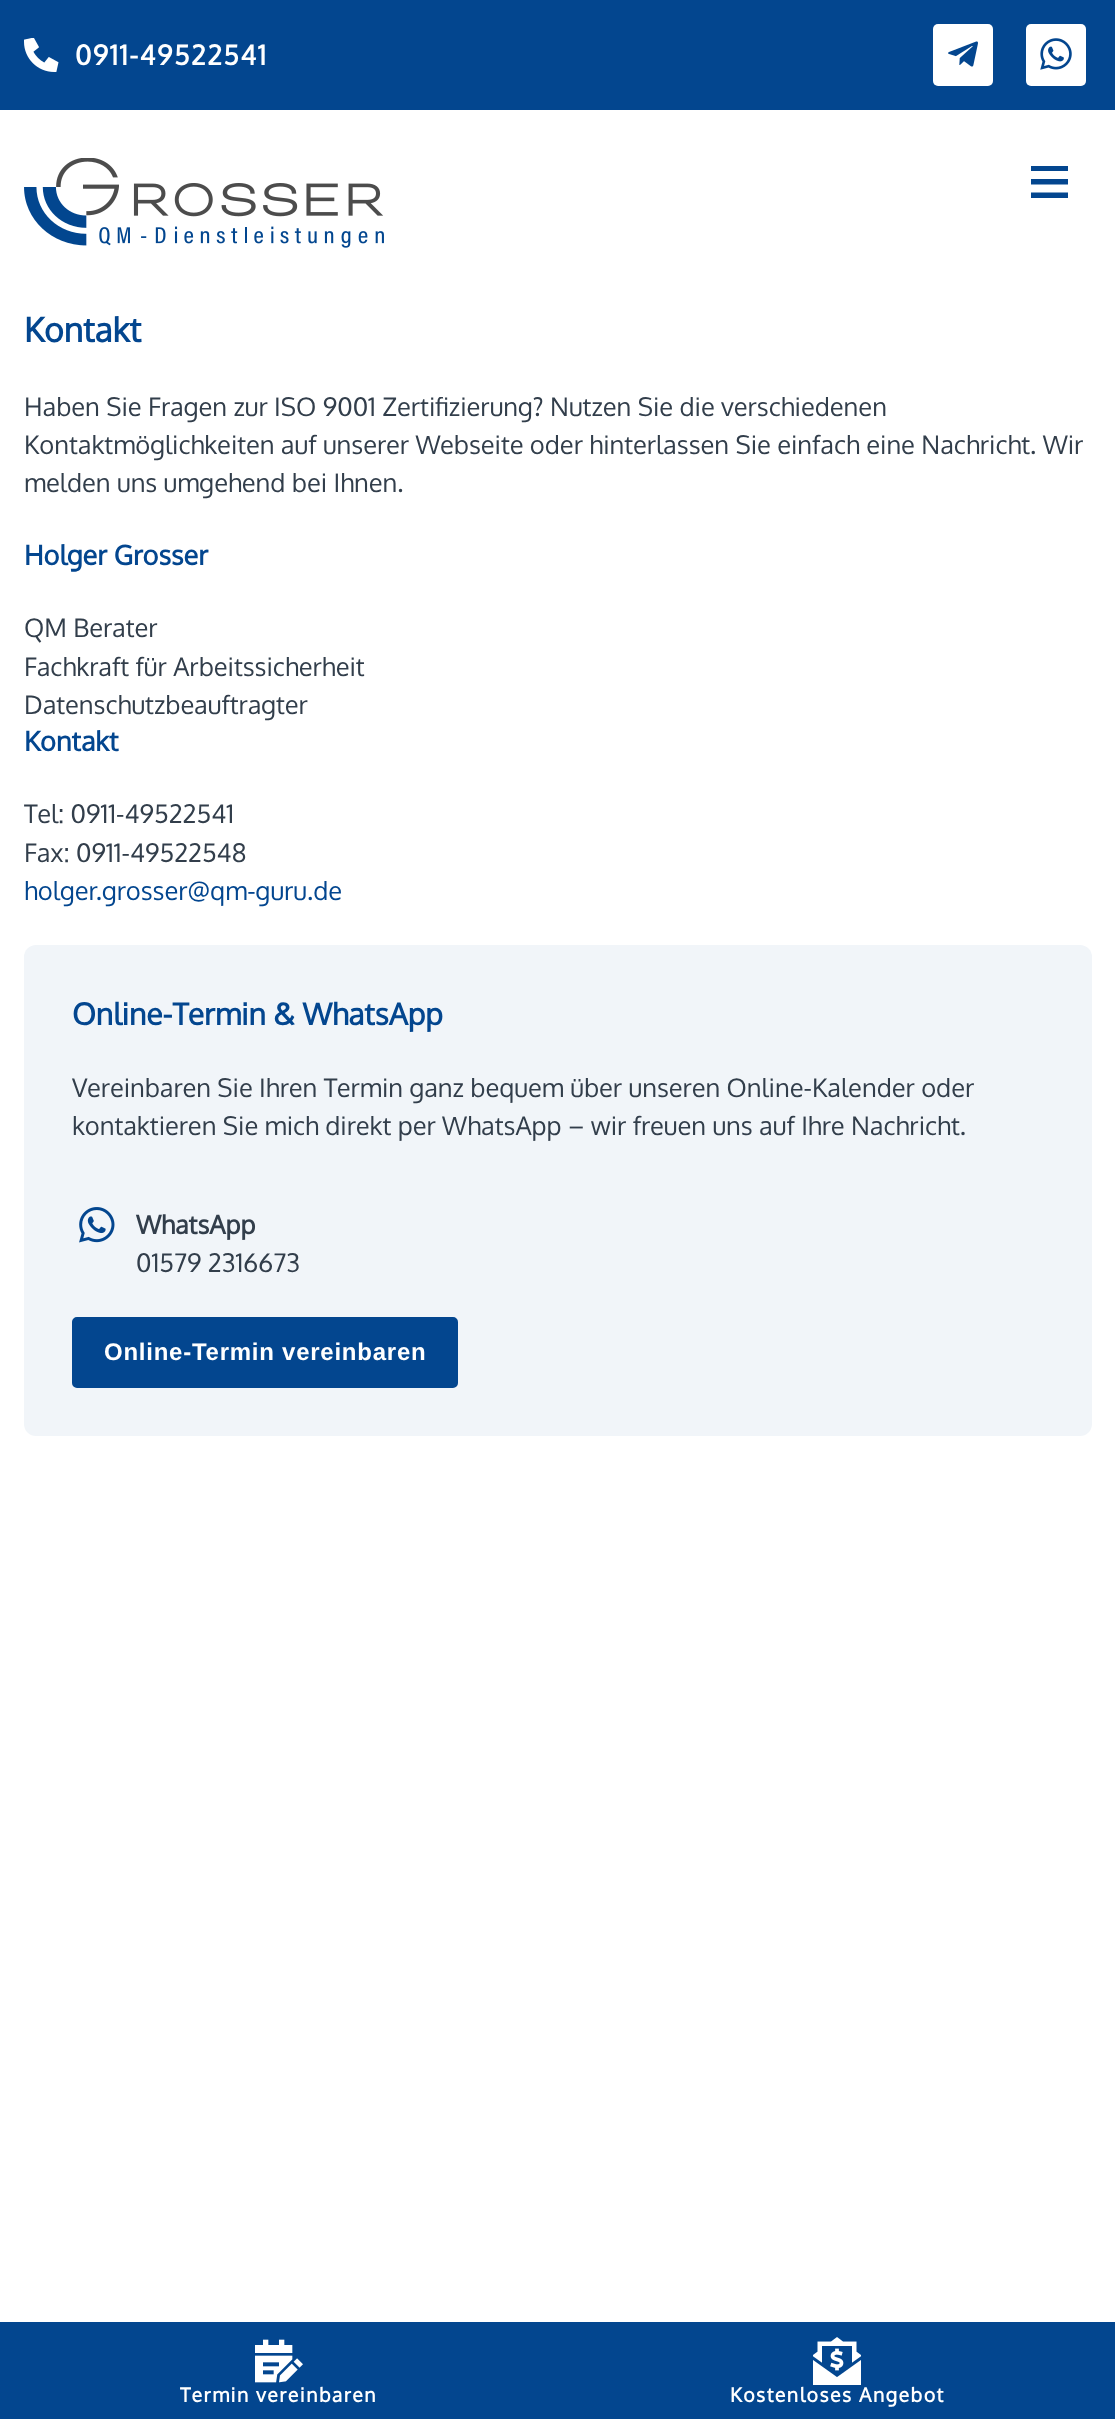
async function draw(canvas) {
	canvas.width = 1115;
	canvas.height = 2419;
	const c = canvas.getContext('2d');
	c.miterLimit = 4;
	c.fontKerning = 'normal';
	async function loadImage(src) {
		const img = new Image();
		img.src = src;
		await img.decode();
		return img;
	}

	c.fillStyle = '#fff';
	c.fillRect(0, 0, 1115, 2419);
	c.fillStyle = '#03468f';
	c.fillRect(0, 0, 1115, 110);
	c.drawImage(await loadImage('img1.png'), 24, 38, 35, 34);
	c.letterSpacing = '1.5px';
	c.font = 'bold 27px Oxygen';
	c.fillStyle = '#fff';
	c.fillText('0911-49522541', 75, 65);
	c.beginPath();
	c.roundRect(933, 24, 60, 62, 5);
	c.fill();
	c.drawImage(await loadImage('img2.png'), 948, 41, 30, 26);
	c.beginPath();
	c.roundRect(1026, 24, 60, 62, 5);
	c.fill();
	c.drawImage(await loadImage('img3.png'), 1040, 38, 32, 32);
	c.drawImage(await loadImage('img4.png'), 24, 158, 360, 90);
	c.save();
	c.beginPath();
	c.rect(1031, 161, 37, 43);
	c.clip();
	c.fillStyle = '#03468f';
	c.beginPath();
	c.moveTo(1030.5, 166);
	c.lineTo(1068, 166);
	c.lineTo(1068, 171);
	c.lineTo(1030.5, 171);
	c.closePath();
	c.moveTo(1030.5, 179);
	c.lineTo(1068, 179);
	c.lineTo(1068, 184.5);
	c.lineTo(1030.5, 184.5);
	c.closePath();
	c.moveTo(1068, 192.5);
	c.lineTo(1068, 198);
	c.lineTo(1030.5, 198);
	c.lineTo(1030.5, 192.5);
	c.closePath();
	c.fill();
	c.restore();
	c.letterSpacing = '0px';
	c.font = 'bold 33.5px Oxygen';
	c.fillStyle = '#03468f';
	c.fillText('Kontakt', 24, 342);
	c.font = '25.5px Oxygen';
	c.fillStyle = '#323e4b';
	for (const [text, x, y] of [
		['Haben Sie Fragen zur ISO 9001 Zertifizierung? Nutzen Sie die verschiedenen', 24, 416],
		['Kontaktmöglichkeiten auf unserer Webseite oder hinterlassen Sie einfach eine Nachricht. Wir', 24, 454],
		['melden uns umgehend bei Ihnen.', 24, 492],
	]) {
		c.fillText(text, x, y);
	}
	c.font = 'bold 27px Oxygen';
	c.fillStyle = '#03468f';
	c.fillText('Holger Grosser', 24, 565);
	c.font = '25.5px Oxygen';
	c.fillStyle = '#323e4b';
	for (const [text, x, y] of [
		['QM Berater', 24, 637],
		['Fachkraft für Arbeitssicherheit', 24, 676],
		['Datenschutzbeauftragter', 24, 714],
	]) {
		c.fillText(text, x, y);
	}
	c.font = 'bold 27px Oxygen';
	c.fillStyle = '#03468f';
	c.fillText('Kontakt', 24, 751);
	c.font = '25.5px Oxygen';
	c.fillStyle = '#323e4b';
	c.fillText('Tel: 0911-49522541', 24, 823);
	c.fillText('Fax: 0911-49522548', 24, 862);
	c.fillStyle = '#03468f';
	c.fillText('holger.grosser@qm-guru.de', 24, 900);
	c.fillStyle = '#f1f5f9';
	c.beginPath();
	c.roundRect(24, 945, 1068, 491, 12);
	c.fill();
	c.font = 'bold 30px Oxygen';
	c.fillStyle = '#03468f';
	c.fillText('Online-Termin & WhatsApp', 72, 1025);
	c.font = '25.5px Oxygen';
	c.fillStyle = '#323e4b';
	c.fillText('Vereinbaren Sie Ihren Termin ganz bequem über unseren Online-Kalender oder', 72, 1097);
	c.fillText('kontaktieren Sie mich direkt per WhatsApp – wir freuen uns auf Ihre Nachricht.', 72, 1135);
	c.drawImage(await loadImage('img5.png'), 79, 1207, 36, 36);
	c.font = 'bold 25.5px Oxygen';
	c.fillText('WhatsApp', 136, 1234);
	c.font = '25.5px Oxygen';
	c.fillText('01579 2316673', 136, 1272);
	c.fillStyle = '#03468f';
	c.beginPath();
	c.roundRect(73, 1318, 384, 69, 4);
	c.fill();
	c.strokeStyle = '#03468f';
	c.lineWidth = 2;
	c.stroke();
	c.letterSpacing = '0.75px';
	c.font = 'bold 24px Liberation Sans';
	c.fillStyle = '#fff';
	c.fillText('Online-Termin vereinbaren', 104, 1360);
	c.fillStyle = '#03468f';
	c.fillRect(0, 2322, 1115, 97);
	c.drawImage(await loadImage('img6.png'), 255, 2339, 48, 44);
	c.letterSpacing = '1.5px';
	c.font = 'bold 19.5px Oxygen';
	c.fillStyle = '#fff';
	c.fillText('Termin vereinbaren', 180, 2402);
	c.drawImage(await loadImage('img7.png'), 813, 2337, 48, 48);
	c.fillText('Kostenloses Angebot', 730, 2402);
}

draw(document.querySelector('canvas'));
